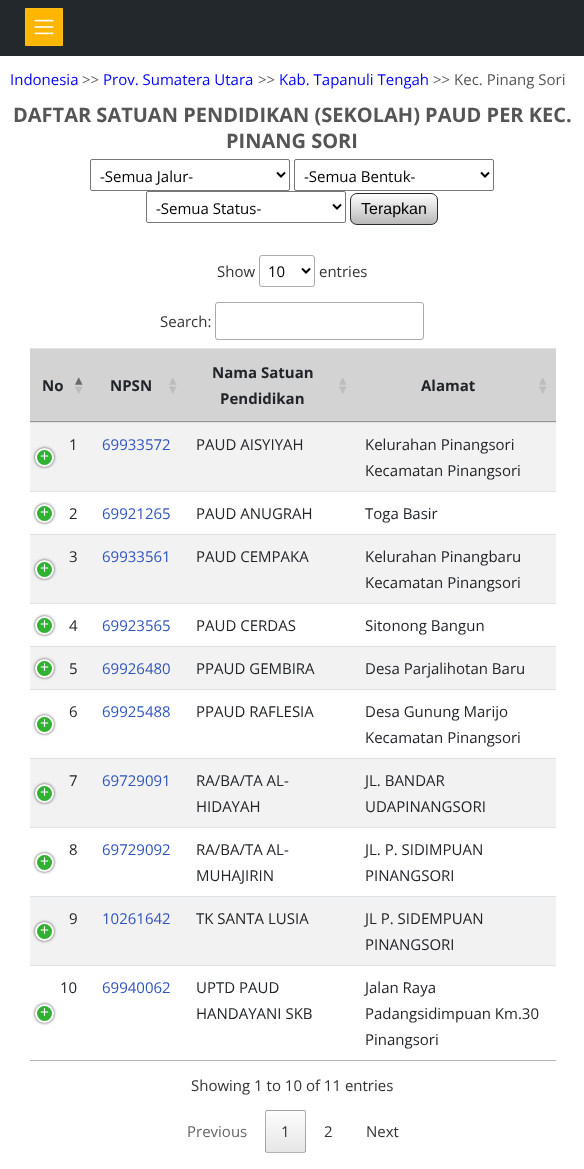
async function draw(canvas) {
	canvas.width = 584;
	canvas.height = 1169;
	const c = canvas.getContext('2d');
	c.miterLimit = 4;
	c.fontKerning = 'normal';
	async function loadImage(src) {
		const img = new Image();
		img.src = src;
		await img.decode();
		return img;
	}
	let gradient;

	c.fillStyle = '#fff';
	c.fillRect(0, 0, 584, 1169);
	c.fillStyle = '#23282d';
	c.fillRect(0, 0, 584, 56);
	c.fillStyle = '#ffb600';
	c.beginPath();
	c.rect(25.5, 8.5, 37, 37);
	c.fill();
	c.strokeStyle = '#ffbd1a';
	c.stroke();
	c.drawImage(await loadImage('img1.png'), 34, 19, 20, 16);
	c.font = '15px Open Sans';
	c.fillStyle = '#00f';
	c.fillText('Indonesia', 10, 85);
	c.fillStyle = '#555';
	c.fillText('>>', 82, 85);
	c.fillStyle = '#00f';
	c.fillText('Prov. Sumatera Utara', 103, 85);
	c.fillStyle = '#555';
	c.fillText('>>', 258, 85);
	c.fillStyle = '#00f';
	c.fillText('Kab. Tapanuli Tengah', 279, 85);
	c.fillStyle = '#555';
	c.fillText('>> Kec. Pinang Sori', 433, 85);
	c.font = 'bold 20px Open Sans';
	c.fillText('DAFTAR SATUAN PENDIDIKAN (SEKOLAH) PAUD PER KEC.', 13, 122);
	c.fillText('PINANG SORI', 226, 148);
	c.beginPath();
	c.roundRect(90.5, 159.5, 199, 31, 1.5);
	c.strokeStyle = '#767676';
	c.stroke();
	c.beginPath();
	c.moveTo(277, 172.5);
	c.lineTo(281, 176.5);
	c.lineTo(285, 172.5);
	c.strokeStyle = '#000';
	c.lineWidth = 2;
	c.stroke();
	c.font = '15px Open Sans';
	c.fillStyle = '#000';
	c.fillText('-Semua Jalur-', 100, 182);
	c.beginPath();
	c.roundRect(294.5, 159.5, 199, 31, 1.5);
	c.strokeStyle = '#767676';
	c.lineWidth = 1;
	c.stroke();
	c.beginPath();
	c.moveTo(481, 172.5);
	c.lineTo(485, 176.5);
	c.lineTo(489, 172.5);
	c.strokeStyle = '#000';
	c.lineWidth = 2;
	c.stroke();
	c.fillText('-Semua Bentuk-', 304, 182);
	c.beginPath();
	c.roundRect(146.5, 191.5, 199, 31, 1.5);
	c.strokeStyle = '#767676';
	c.lineWidth = 1;
	c.stroke();
	c.beginPath();
	c.moveTo(333, 204.5);
	c.lineTo(337, 208.5);
	c.lineTo(341, 204.5);
	c.strokeStyle = '#000';
	c.lineWidth = 2;
	c.stroke();
	c.fillText('-Semua Status-', 156, 214);
	c.save();
	c.beginPath();
	c.roundRect(350, 193, 88, 32, 7);
	c.clip();
	gradient = c.createLinearGradient(394, 194, 394, 224);
	gradient.addColorStop(0, '#fff');
	gradient.addColorStop(1, '#b8b8b8');
	c.fillStyle = gradient;
	c.fillRect(350, 194, 88, 30);
	c.restore();
	c.beginPath();
	c.roundRect(350.5, 193.5, 87, 31, 6.5);
	c.strokeStyle = '#2a2d30';
	c.lineWidth = 1;
	c.stroke();
	c.font = '16px Liberation Sans';
	c.fillText('Terapkan', 361, 214);
	c.font = '15px Open Sans';
	c.fillStyle = '#333';
	c.fillText('Show', 217, 277);
	c.beginPath();
	c.roundRect(259.5, 255.5, 55, 31, 2.5);
	c.strokeStyle = '#aaa';
	c.stroke();
	c.beginPath();
	c.moveTo(302, 268.5);
	c.lineTo(306, 272.5);
	c.lineTo(310, 268.5);
	c.strokeStyle = '#000';
	c.lineWidth = 2;
	c.stroke();
	c.fillStyle = '#000';
	c.fillText('10', 268, 277);
	c.fillStyle = '#333';
	c.fillText('entries', 319, 277);
	c.fillText('Search:', 160, 327);
	c.beginPath();
	c.roundRect(215.5, 302.5, 208, 37, 2.5);
	c.strokeStyle = '#aaa';
	c.lineWidth = 1;
	c.stroke();
	for (const [x, y, w, h, color] of [
		[30, 1060, 526, 1, '#b3b3b3'],
		[30, 349, 526, 72, '#d3d3d3'],
		[30, 348, 526, 1, '#dee2e6'],
		[30, 421, 526, 1, '#949494'],
	]) {
		c.fillStyle = color;
		c.fillRect(x, y, w, h);
	}
	c.font = 'bold 15px Open Sans';
	c.fillStyle = '#212529';
	c.fillText('No', 42, 391);
	c.font = 'bold 14px DejaVu Sans';
	c.fillStyle = '#686b6d';
	c.fillText('▴', 75, 385);
	c.fillStyle = '#bdbdbe';
	c.fillText('▾', 75, 394);
	c.font = 'bold 15px Open Sans';
	c.fillStyle = '#212529';
	c.fillText('NPSN', 110, 391);
	c.font = 'bold 14px DejaVu Sans';
	c.fillStyle = '#bdbdbe';
	c.fillText('▴', 169, 385);
	c.fillText('▾', 169, 394);
	c.font = 'bold 15px Open Sans';
	c.fillStyle = '#212529';
	c.fillText('Nama Satuan', 212, 378);
	c.font = 'bold 14px DejaVu Sans';
	c.fillStyle = '#bdbdbe';
	c.fillText('▴', 339, 385);
	c.fillText('▾', 339, 394);
	c.font = 'bold 15px Open Sans';
	c.fillStyle = '#212529';
	c.fillText('Pendidikan', 220, 404);
	c.fillText('Alamat', 421, 391);
	c.font = 'bold 14px DejaVu Sans';
	c.fillStyle = '#bdbdbe';
	c.fillText('▴', 539, 385);
	c.fillText('▾', 539, 394);
	c.fillStyle = '#f2f2f2';
	c.fillRect(30, 423, 526, 68);
	c.font = '15px Open Sans';
	c.fillStyle = '#212529';
	c.fillText('1', 69, 450);
	c.fillStyle = '#444';
	c.filter = 'blur(1.5px)';
	c.beginPath();
	c.roundRect(35, 448, 19, 19, 9.5);
	c.fill();
	c.filter = 'none';
	c.fillStyle = '#31b131';
	c.beginPath();
	c.arc(44.5, 457.5, 8.5, 0, 2 * Math.PI);
	c.fill();
	c.strokeStyle = '#fff';
	c.lineWidth = 2;
	c.stroke();
	c.font = '15px Liberation Mono';
	c.fillStyle = '#fff';
	c.fillText('+', 40, 461);
	c.fillStyle = '#dee2e6';
	c.fillRect(30, 422, 526, 1);
	c.font = '15px Open Sans';
	c.fillStyle = '#3055be';
	c.fillText('69933572', 102, 450);
	c.fillStyle = '#212529';
	for (const [text, x, y] of [
		['PAUD AISYIYAH', 196, 450],
		['Kelurahan Pinangsori', 365, 450],
		['Kecamatan Pinangsori', 365, 476],
	]) {
		c.fillText(text, x, y);
	}
	c.fillStyle = '#444';
	c.filter = 'blur(1.5px)';
	c.beginPath();
	c.roundRect(35, 504, 19, 19, 9.5);
	c.fill();
	c.filter = 'none';
	c.fillStyle = '#31b131';
	c.beginPath();
	c.arc(44.5, 513.5, 8.5, 0, 2 * Math.PI);
	c.fill();
	c.stroke();
	c.font = '15px Liberation Mono';
	c.fillStyle = '#fff';
	c.fillText('+', 40, 517);
	c.font = '15px Open Sans';
	c.fillStyle = '#212529';
	c.fillText('2', 69, 519);
	c.fillStyle = '#dee2e6';
	c.fillRect(30, 491, 526, 1);
	c.fillStyle = '#3055be';
	c.fillText('69921265', 102, 519);
	c.fillStyle = '#212529';
	c.fillText('PAUD ANUGRAH', 196, 519);
	c.fillText('Toga Basir', 365, 519);
	c.fillStyle = '#f2f2f2';
	c.fillRect(30, 535, 526, 68);
	c.fillStyle = '#212529';
	c.fillText('3', 69, 562);
	c.fillStyle = '#444';
	c.filter = 'blur(1.5px)';
	c.beginPath();
	c.roundRect(35, 560, 19, 19, 9.5);
	c.fill();
	c.filter = 'none';
	c.fillStyle = '#31b131';
	c.beginPath();
	c.arc(44.5, 569.5, 8.5, 0, 2 * Math.PI);
	c.fill();
	c.stroke();
	c.font = '15px Liberation Mono';
	c.fillStyle = '#fff';
	c.fillText('+', 40, 573);
	c.fillStyle = '#dee2e6';
	c.fillRect(30, 534, 526, 1);
	c.font = '15px Open Sans';
	c.fillStyle = '#3055be';
	c.fillText('69933561', 102, 562);
	c.fillStyle = '#212529';
	for (const [text, x, y] of [
		['PAUD CEMPAKA', 196, 562],
		['Kelurahan Pinangbaru', 365, 562],
		['Kecamatan Pinangsori', 365, 588],
	]) {
		c.fillText(text, x, y);
	}
	c.fillStyle = '#444';
	c.filter = 'blur(1.5px)';
	c.beginPath();
	c.roundRect(35, 616, 19, 19, 9.5);
	c.fill();
	c.filter = 'none';
	c.fillStyle = '#31b131';
	c.beginPath();
	c.arc(44.5, 625.5, 8.5, 0, 2 * Math.PI);
	c.fill();
	c.stroke();
	c.font = '15px Liberation Mono';
	c.fillStyle = '#fff';
	c.fillText('+', 40, 629);
	c.font = '15px Open Sans';
	c.fillStyle = '#212529';
	c.fillText('4', 69, 631);
	c.fillStyle = '#dee2e6';
	c.fillRect(30, 603, 526, 1);
	c.fillStyle = '#3055be';
	c.fillText('69923565', 102, 631);
	c.fillStyle = '#212529';
	c.fillText('PAUD CERDAS', 196, 631);
	c.fillText('Sitonong Bangun', 365, 631);
	c.fillStyle = '#f2f2f2';
	c.fillRect(30, 647, 526, 42);
	c.fillStyle = '#444';
	c.filter = 'blur(1.5px)';
	c.beginPath();
	c.roundRect(35, 659, 19, 19, 9.5);
	c.fill();
	c.filter = 'none';
	c.fillStyle = '#31b131';
	c.beginPath();
	c.arc(44.5, 668.5, 8.5, 0, 2 * Math.PI);
	c.fill();
	c.stroke();
	c.font = '15px Liberation Mono';
	c.fillStyle = '#fff';
	c.fillText('+', 40, 672);
	c.font = '15px Open Sans';
	c.fillStyle = '#212529';
	c.fillText('5', 69, 674);
	c.fillStyle = '#dee2e6';
	c.fillRect(30, 646, 526, 1);
	c.fillStyle = '#3055be';
	c.fillText('69926480', 102, 674);
	c.fillStyle = '#212529';
	for (const [text, x, y] of [
		['PPAUD GEMBIRA', 196, 674],
		['Desa Parjalihotan Baru', 365, 674],
		['6', 69, 717],
	]) {
		c.fillText(text, x, y);
	}
	c.fillStyle = '#444';
	c.filter = 'blur(1.5px)';
	c.beginPath();
	c.roundRect(35, 715, 19, 19, 9.5);
	c.fill();
	c.filter = 'none';
	c.fillStyle = '#31b131';
	c.beginPath();
	c.arc(44.5, 724.5, 8.5, 0, 2 * Math.PI);
	c.fill();
	c.stroke();
	c.font = '15px Liberation Mono';
	c.fillStyle = '#fff';
	c.fillText('+', 40, 728);
	c.fillStyle = '#dee2e6';
	c.fillRect(30, 689, 526, 1);
	c.font = '15px Open Sans';
	c.fillStyle = '#3055be';
	c.fillText('69925488', 102, 717);
	c.fillStyle = '#212529';
	for (const [text, x, y] of [
		['PPAUD RAFLESIA', 196, 717],
		['Desa Gunung Marijo', 365, 717],
		['Kecamatan Pinangsori', 365, 743],
	]) {
		c.fillText(text, x, y);
	}
	c.fillStyle = '#f2f2f2';
	c.fillRect(30, 759, 526, 68);
	c.fillStyle = '#212529';
	c.fillText('7', 69, 786);
	c.fillStyle = '#444';
	c.filter = 'blur(1.5px)';
	c.beginPath();
	c.roundRect(35, 784, 19, 19, 9.5);
	c.fill();
	c.filter = 'none';
	c.fillStyle = '#31b131';
	c.beginPath();
	c.arc(44.5, 793.5, 8.5, 0, 2 * Math.PI);
	c.fill();
	c.stroke();
	c.font = '15px Liberation Mono';
	c.fillStyle = '#fff';
	c.fillText('+', 40, 797);
	c.fillStyle = '#dee2e6';
	c.fillRect(30, 758, 526, 1);
	c.font = '15px Open Sans';
	c.fillStyle = '#3055be';
	c.fillText('69729091', 102, 786);
	c.fillStyle = '#212529';
	for (const [text, x, y] of [
		['RA/BA/TA AL-', 196, 786],
		['HIDAYAH', 196, 812],
		['JL. BANDAR', 365, 786],
		['UDAPINANGSORI', 365, 812],
		['8', 69, 855],
	]) {
		c.fillText(text, x, y);
	}
	c.fillStyle = '#444';
	c.filter = 'blur(1.5px)';
	c.beginPath();
	c.roundRect(35, 853, 19, 19, 9.5);
	c.fill();
	c.filter = 'none';
	c.fillStyle = '#31b131';
	c.beginPath();
	c.arc(44.5, 862.5, 8.5, 0, 2 * Math.PI);
	c.fill();
	c.stroke();
	c.font = '15px Liberation Mono';
	c.fillStyle = '#fff';
	c.fillText('+', 40, 866);
	c.fillStyle = '#dee2e6';
	c.fillRect(30, 827, 526, 1);
	c.font = '15px Open Sans';
	c.fillStyle = '#3055be';
	c.fillText('69729092', 102, 855);
	c.fillStyle = '#212529';
	for (const [text, x, y] of [
		['RA/BA/TA AL-', 196, 855],
		['MUHAJIRIN', 196, 881],
		['JL. P. SIDIMPUAN', 365, 855],
		['PINANGSORI', 365, 881],
	]) {
		c.fillText(text, x, y);
	}
	c.fillStyle = '#f2f2f2';
	c.fillRect(30, 897, 526, 68);
	c.fillStyle = '#212529';
	c.fillText('9', 69, 924);
	c.fillStyle = '#444';
	c.filter = 'blur(1.5px)';
	c.beginPath();
	c.roundRect(35, 922, 19, 19, 9.5);
	c.fill();
	c.filter = 'none';
	c.fillStyle = '#31b131';
	c.beginPath();
	c.arc(44.5, 931.5, 8.5, 0, 2 * Math.PI);
	c.fill();
	c.stroke();
	c.font = '15px Liberation Mono';
	c.fillStyle = '#fff';
	c.fillText('+', 40, 935);
	c.fillStyle = '#dee2e6';
	c.fillRect(30, 896, 526, 1);
	c.font = '15px Open Sans';
	c.fillStyle = '#3055be';
	c.fillText('10261642', 102, 924);
	c.fillStyle = '#212529';
	for (const [text, x, y] of [
		['TK SANTA LUSIA', 196, 924],
		['JL P. SIDEMPUAN', 365, 924],
		['PINANGSORI', 365, 950],
		['10', 60, 993],
	]) {
		c.fillText(text, x, y);
	}
	c.fillStyle = '#444';
	c.filter = 'blur(1.5px)';
	c.beginPath();
	c.roundRect(35, 1004, 19, 19, 9.5);
	c.fill();
	c.filter = 'none';
	c.fillStyle = '#31b131';
	c.beginPath();
	c.arc(44.5, 1013.5, 8.5, 0, 2 * Math.PI);
	c.fill();
	c.stroke();
	c.font = '15px Liberation Mono';
	c.fillStyle = '#fff';
	c.fillText('+', 40, 1017);
	c.fillStyle = '#dee2e6';
	c.fillRect(30, 965, 526, 1);
	c.font = '15px Open Sans';
	c.fillStyle = '#3055be';
	c.fillText('69940062', 102, 993);
	c.fillStyle = '#212529';
	for (const [text, x, y] of [
		['UPTD PAUD', 196, 993],
		['HANDAYANI SKB', 196, 1019],
		['Jalan Raya', 365, 993],
		['Padangsidimpuan Km.30', 365, 1019],
		['Pinangsori', 365, 1045],
	]) {
		c.fillText(text, x, y);
	}
	c.fillStyle = '#333';
	c.fillText('Showing 1 to 10 of 11 entries', 191, 1091);
	c.fillStyle = '#666';
	c.fillText('Previous', 187, 1137);
	c.save();
	c.beginPath();
	c.roundRect(265, 1110, 41, 43, 2);
	c.clip();
	gradient = c.createLinearGradient(286, 1070, 286, 1111);
	gradient.addColorStop(0, '#fdfdfd');
	gradient.addColorStop(1, '#e6e6e6');
	c.fillStyle = gradient;
	c.fillRect(265, 1110, 41, 1);
	gradient = c.createLinearGradient(286, 1111, 286, 1152);
	gradient.addColorStop(0, '#fdfdfd');
	gradient.addColorStop(1, '#e6e6e6');
	c.fillStyle = gradient;
	c.fillRect(265, 1111, 41, 41);
	c.restore();
	c.beginPath();
	c.roundRect(265.5, 1110.5, 40, 42, 1.5);
	c.strokeStyle = '#0000004d';
	c.lineWidth = 1;
	c.stroke();
	c.fillStyle = '#333';
	for (const [text, x, y] of [
		['1', 281, 1137],
		['2', 324, 1137],
		['Next', 366, 1137],
	]) {
		c.fillText(text, x, y);
	}
}

draw(document.querySelector('canvas'));
